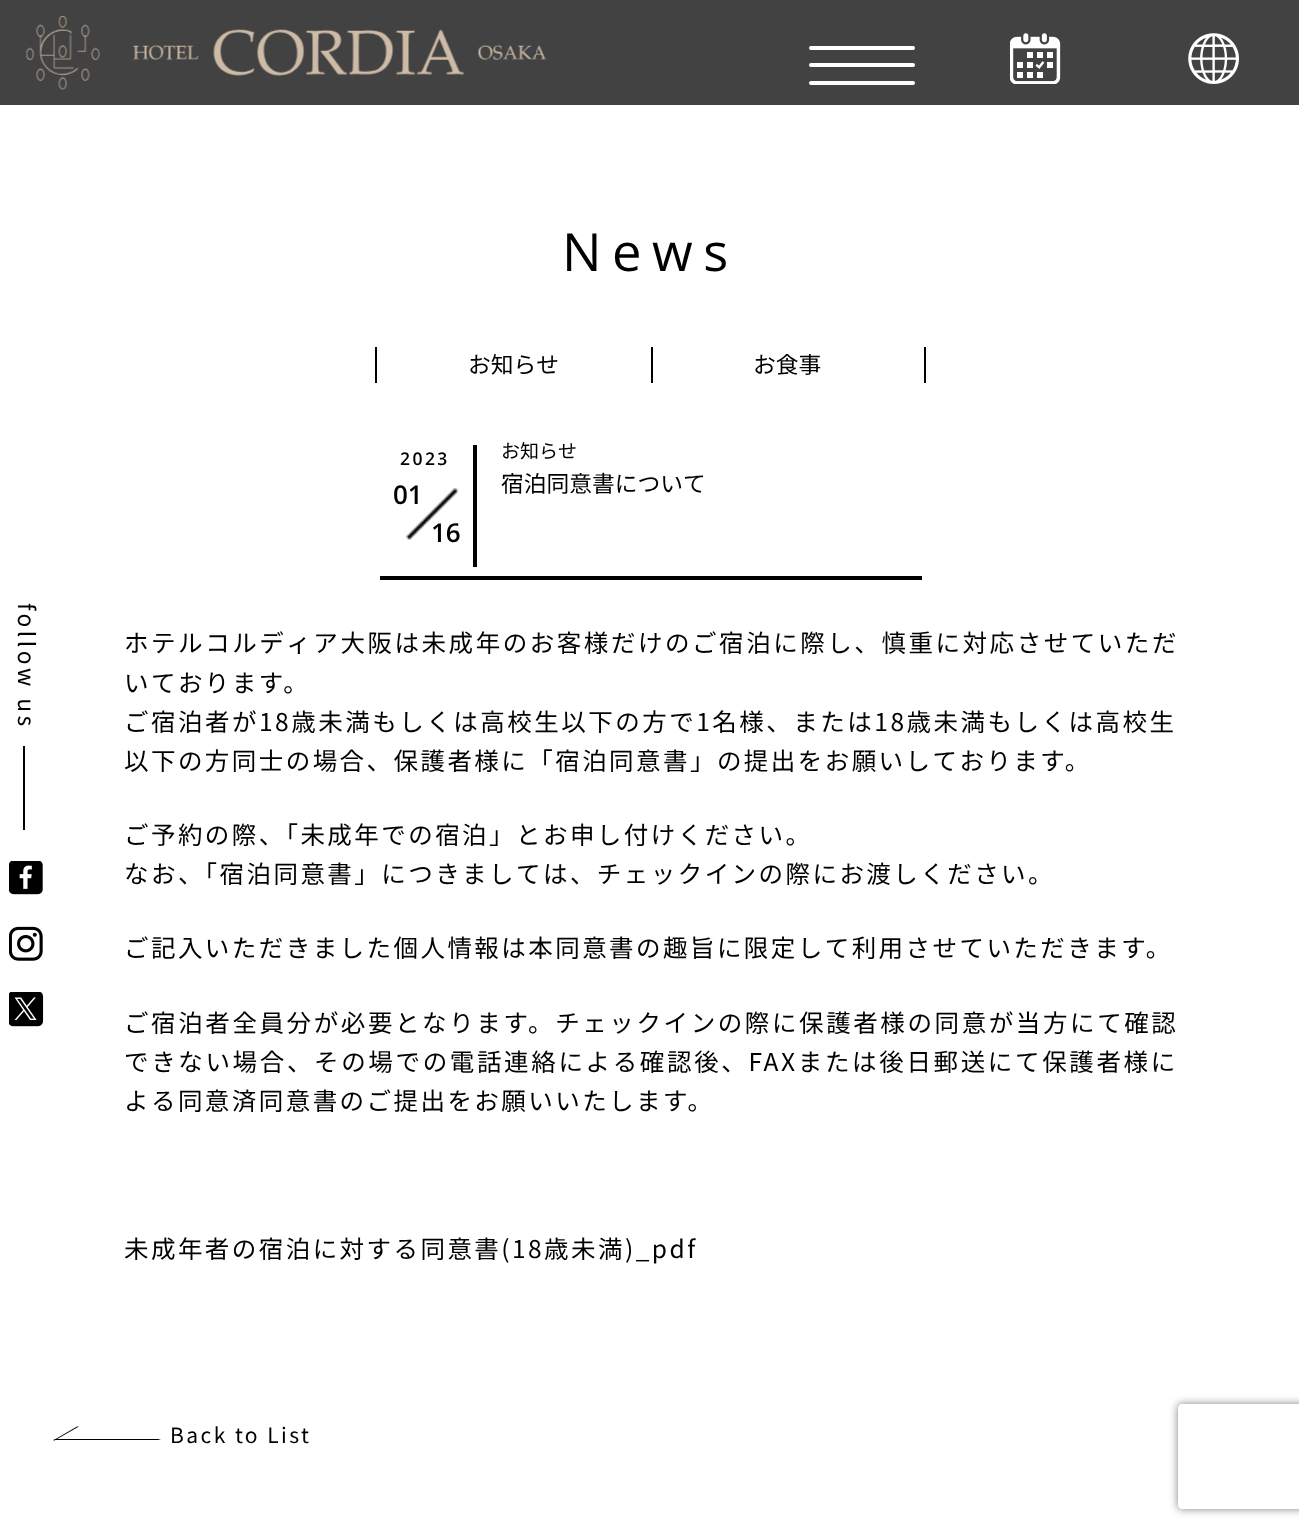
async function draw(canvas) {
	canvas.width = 1299;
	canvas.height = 1533;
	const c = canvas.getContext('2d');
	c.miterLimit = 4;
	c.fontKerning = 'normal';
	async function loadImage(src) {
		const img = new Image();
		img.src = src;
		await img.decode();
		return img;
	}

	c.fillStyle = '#fff';
	c.fillRect(0, 0, 1299, 1533);
	c.fillStyle = '#424242';
	c.fillRect(0, 0, 1299, 105);
	c.drawImage(await loadImage('img1.png'), 26, 16, 521, 74);
	c.fillStyle = '#fff';
	c.beginPath();
	c.roundRect(809, 46, 106, 4, 2);
	c.fill();
	c.beginPath();
	c.roundRect(809, 63, 106, 4, 2);
	c.fill();
	c.beginPath();
	c.roundRect(809, 81, 106, 4, 2);
	c.fill();
	c.drawImage(await loadImage('img2.png'), 1010, 33, 51, 51);
	c.drawImage(await loadImage('img3.png'), 1188, 33, 51, 51);
	c.letterSpacing = '3.5px';
	c.font = '22.75px Noto Sans JP';
	c.fillStyle = '#000';
	c.save();
	c.translate(18, 603);
	c.rotate(90 * Math.PI / 180);
	c.fillText('follow us', 0, 0);
	c.restore();
	c.fillRect(23, 746, 2, 84);
	c.drawImage(await loadImage('img4.png'), 9, 861, 34, 34);
	c.drawImage(await loadImage('img5.png'), 9, 926, 34, 35);
	c.drawImage(await loadImage('img6.png'), 9, 992, 35, 35);
	c.letterSpacing = '10.5px';
	c.font = '52.5px Open Sans';
	c.fillText('News', 562, 271);
	c.fillRect(375, 347, 2, 36);
	c.letterSpacing = '0px';
	c.font = '22.75px Noto Sans JP';
	c.fillText('お知らせ', 468, 373);
	c.fillRect(924, 347, 2, 36);
	c.fillRect(651, 347, 2, 36);
	c.fillText('お食事', 753, 373);
	c.fillRect(380, 576, 542, 4);
	c.drawImage(await loadImage('img7.png'), 406, 488, 53, 52);
	c.fillRect(473, 445, 4, 122);
	c.letterSpacing = '2.45px';
	c.font = '600 17.5px Open Sans';
	c.fillText('2023', 400, 465);
	c.letterSpacing = '0px';
	c.font = '600 26px Open Sans';
	c.fillText('01', 393, 504);
	c.fillText('16', 431, 542);
	c.font = '19px Noto Sans JP';
	c.fillText('お知らせ', 501, 458);
	c.font = '22.75px Noto Sans JP';
	c.fillText('宿泊同意書について', 501, 492);
	c.letterSpacing = '2.55px';
	c.font = '24.5px Noto Sans JP';
	c.fillText('ホテルコルディア大阪は未成年のお客様だけのご宿泊に際し、慎重に対応させていただ', 124, 652);
	c.letterSpacing = '2.45px';
	c.fillText('いております。', 124, 692);
	c.letterSpacing = '2.5px';
	c.fillText('ご宿泊者が18歳未満もしくは高校生以下の方で1名様、または18歳未満もしくは高校生', 124, 731);
	c.letterSpacing = '2.45px';
	for (const [text, x, y] of [
		['以下の方同士の場合、保護者様に「宿泊同意書」の提出をお願いしております。', 124, 770],
		['ご予約の際、「未成年での宿泊」とお申し付けください。', 124, 844],
		['なお、「宿泊同意書」につきましては、チェックインの際にお渡しください。', 124, 883],
		['ご記入いただきました個人情報は本同意書の趣旨に限定して利用させていただきます。', 124, 957],
	]) {
		c.fillText(text, x, y);
	}
	c.letterSpacing = '2.6px';
	c.fillText('ご宿泊者全員分が必要となります。チェックインの際に保護者様の同意が当方にて確認', 124, 1032);
	c.letterSpacing = '2.65px';
	c.fillText('できない場合、その場での電話連絡による確認後、FAXまたは後日郵送にて保護者様に', 124, 1071);
	c.letterSpacing = '2.45px';
	c.fillText('よる同意済同意書のご提出をお願いいたします。', 124, 1110);
	c.fillText('未成年者の宿泊に対する同意書(18歳未満)_pdf', 124, 1258);
	c.beginPath();
	c.moveTo(56, 1439);
	c.lineTo(161, 1439);
	c.lineTo(158, 1440);
	c.lineTo(53, 1440);
	c.closePath();
	c.fill();
	c.beginPath();
	c.moveTo(77, 1426.5);
	c.lineTo(79, 1426.5);
	c.lineTo(54.5, 1440.5);
	c.lineTo(53, 1440.5);
	c.closePath();
	c.fill();
	c.font = '21px Noto Sans JP';
	c.fillText('Back to List', 170, 1443);
	c.save();
	c.beginPath();
	c.moveTo(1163, 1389);
	c.lineTo(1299, 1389);
	c.lineTo(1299, 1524);
	c.lineTo(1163, 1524);
	c.closePath();
	c.moveTo(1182, 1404);
	c.lineTo(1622, 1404);
	c.bezierCurveTo(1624, 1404, 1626, 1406, 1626, 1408);
	c.lineTo(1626, 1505);
	c.bezierCurveTo(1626, 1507, 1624, 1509, 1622, 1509);
	c.lineTo(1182, 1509);
	c.bezierCurveTo(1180, 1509, 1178, 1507, 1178, 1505);
	c.lineTo(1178, 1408);
	c.bezierCurveTo(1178, 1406, 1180, 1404, 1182, 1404);
	c.closePath();
	c.clip('evenodd');
	c.fillStyle = '#808080';
	c.filter = 'blur(4.5px)';
	c.beginPath();
	c.roundRect(1178, 1404, 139, 105, 4);
	c.fill();
	c.filter = 'none';
	c.restore();
}

draw(document.querySelector('canvas'));
